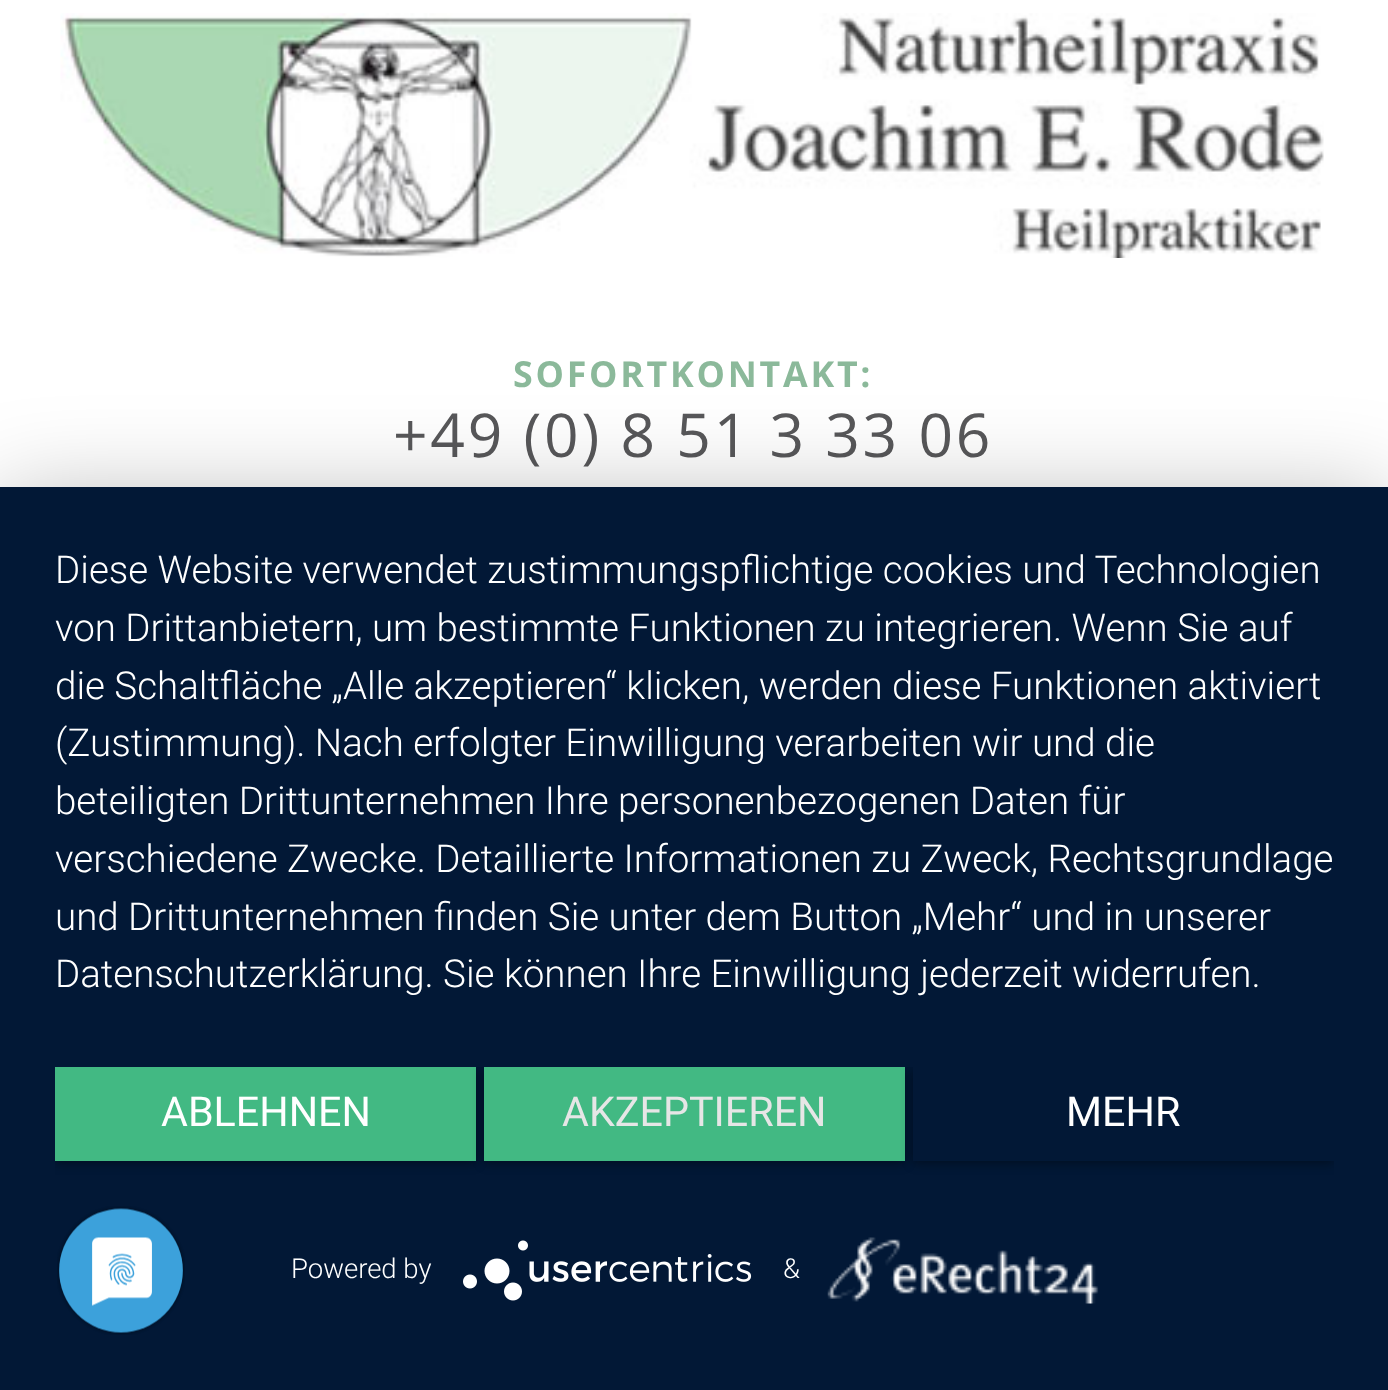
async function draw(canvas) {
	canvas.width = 1388;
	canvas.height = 1390;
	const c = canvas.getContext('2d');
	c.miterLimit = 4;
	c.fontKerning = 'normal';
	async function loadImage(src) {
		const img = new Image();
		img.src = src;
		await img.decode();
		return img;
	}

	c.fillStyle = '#fff';
	c.fillRect(0, 0, 1388, 1390);
	c.drawImage(await loadImage('img1.png'), 60, 13, 1264, 245);
	c.letterSpacing = '2.75px';
	c.font = 'bold 35.75px Open Sans';
	c.fillStyle = '#8bb99a';
	c.fillText('SOFORTKONTAKT:', 513, 387);
	c.font = '60.5px Open Sans';
	c.fillStyle = '#58585a';
	c.fillText('+49 (0) 8 51 3 33 06', 393, 457);
	c.fillStyle = '#0000004d';
	c.filter = 'blur(49.5px)';
	c.beginPath();
	c.rect(0, 503, 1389, 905);
	c.fill();
	c.filter = 'none';
	c.fillStyle = '#021836';
	c.fillRect(0, 487, 1388, 903);
	c.letterSpacing = '0px';
	c.font = '300 38.5px Roboto';
	c.fillStyle = '#fff';
	for (const [text, x, y] of [
		['Diese Website verwendet zustimmungspflichtige cookies und Technologien', 55, 583],
		['von Drittanbietern, um bestimmte Funktionen zu integrieren. Wenn Sie auf', 55, 641],
		['die Schaltfläche „Alle akzeptieren“ klicken, werden diese Funktionen aktiviert', 55, 699],
		['(Zustimmung). Nach erfolgter Einwilligung verarbeiten wir und die', 55, 756],
		['beteiligten Drittunternehmen Ihre personenbezogenen Daten für', 55, 814],
		['verschiedene Zwecke. Detaillierte Informationen zu Zweck, Rechtsgrundlage', 55, 872],
		['und Drittunternehmen finden Sie unter dem Button „Mehr“ und in unserer', 55, 930],
		['Datenschutzerklärung. Sie können Ihre Einwilligung jederzeit widerrufen.', 55, 987],
	]) {
		c.fillText(text, x, y);
	}
	c.save();
	c.beginPath();
	c.rect(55, 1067, 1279, 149);
	c.clip();
	c.fillStyle = '#00000066';
	c.filter = 'blur(5.5px)';
	c.beginPath();
	c.rect(55, 1070, 421, 93);
	c.fill();
	c.filter = 'none';
	c.restore();
	c.fillStyle = '#42b983';
	c.fillRect(55, 1067, 421, 94);
	c.font = '41.25px Roboto';
	c.fillStyle = '#fff';
	c.fillText('ABLEHNEN', 161, 1126);
	c.save();
	c.beginPath();
	c.rect(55, 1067, 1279, 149);
	c.clip();
	c.fillStyle = '#00000066';
	c.filter = 'blur(5.5px)';
	c.beginPath();
	c.rect(484, 1070, 421, 93);
	c.fill();
	c.filter = 'none';
	c.restore();
	c.fillStyle = '#42b983';
	c.fillRect(484, 1067, 421, 94);
	c.fillStyle = '#e6e6e6';
	c.fillText('AKZEPTIEREN', 562, 1126);
	c.save();
	c.beginPath();
	c.rect(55, 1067, 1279, 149);
	c.clip();
	c.fillStyle = '#00000066';
	c.filter = 'blur(5.5px)';
	c.beginPath();
	c.rect(913, 1070, 421, 93);
	c.fill();
	c.filter = 'none';
	c.restore();
	c.fillStyle = '#021836';
	c.fillRect(913, 1067, 421, 94);
	c.fillStyle = '#fff';
	c.fillText('MEHR', 1066, 1126);
	c.font = '300 27.5px Roboto';
	c.fillText('Powered by', 291, 1278);
	c.drawImage(await loadImage('img2.png'), 463, 1240, 289, 61);
	c.fillText('&', 783, 1278);
	c.drawImage(await loadImage('img3.png'), 827, 1237, 272, 67);
	c.drawImage(await loadImage('img4.png'), 57, 1206, 128, 129);
}

draw(document.querySelector('canvas'));
